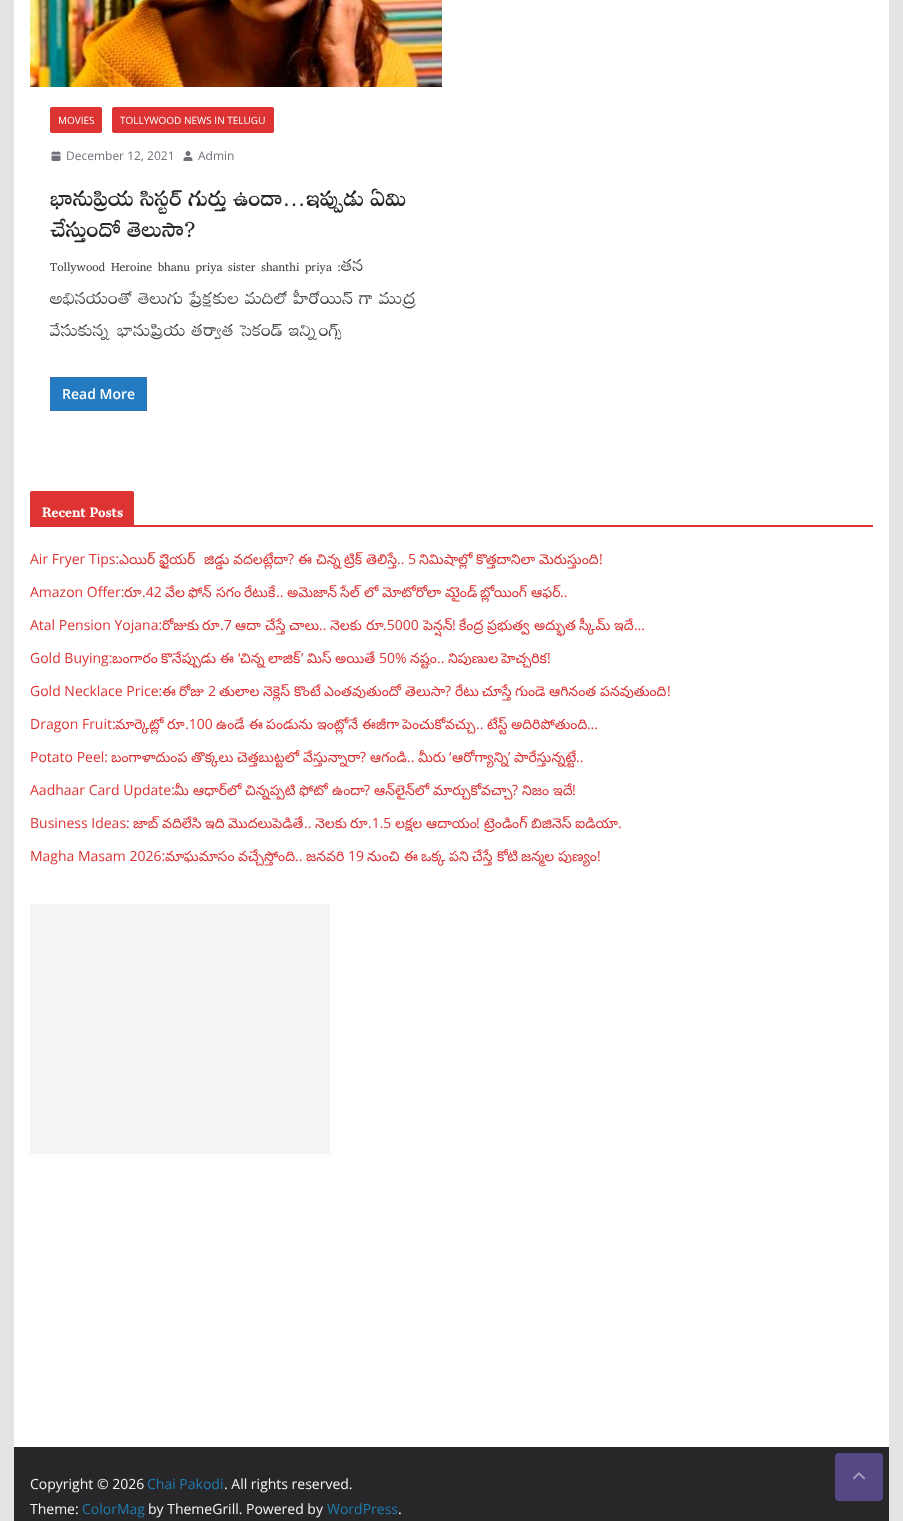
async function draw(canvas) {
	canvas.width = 903;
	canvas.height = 1521;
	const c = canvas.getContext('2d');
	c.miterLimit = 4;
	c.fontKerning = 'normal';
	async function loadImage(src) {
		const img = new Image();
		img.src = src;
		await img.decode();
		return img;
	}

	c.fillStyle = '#e4e4e7';
	c.fillRect(0, 0, 903, 1521);
	c.fillStyle = '#fff';
	c.fillRect(14, 0, 875, 1447);
	c.drawImage(await loadImage('img1.png'), 30, 0, 412, 87);
	c.fillStyle = '#d33';
	c.beginPath();
	c.roundRect(50, 107, 52, 26, 2);
	c.fill();
	c.font = '10px Open Sans';
	c.fillStyle = '#fff';
	c.fillText('MOVIES', 58, 124);
	c.fillStyle = '#d33';
	c.beginPath();
	c.roundRect(112, 107, 162, 26, 2);
	c.fill();
	c.fillStyle = '#fff';
	c.fillText('TOLLYWOOD NEWS IN TELUGU', 120, 124);
	c.drawImage(await loadImage('img2.png'), 51, 151, 10, 10);
	c.font = '12px Open Sans';
	c.fillStyle = '#71717a';
	c.fillText('December 12, 2021', 66, 160);
	c.drawImage(await loadImage('img3.png'), 183, 151, 10, 10);
	c.fillText('Admin', 198, 160);
	c.font = '24px Sree Krushnadevaraya';
	c.fillStyle = '#27272a';
	c.fillText('భానుప్రియ సిస్టర్ గుర్తు ఉందా', 50, 206);
	c.font = '24px Liberation Sans';
	c.fillText('…', 282, 206);
	c.font = '24px Sree Krushnadevaraya';
	c.fillText('ఇప్పుడు ఏమి', 306, 206);
	c.fillText('చేస్తుందో తెలుసా?', 50, 237);
	c.font = '18px Peddana';
	c.fillStyle = '#444';
	for (const [text, x, y] of [
		['Tollywood Heroine bhanu priya sister shanthi priya :తన', 50, 271],
		['అభినయంతో తెలుగు ప్రేక్షకుల మదిలో హీరోయిన్ గా ముద్ర', 50, 304],
		['వేసుకున్న భానుప్రియ తర్వాత సెకండ్ ఇన్నింగ్స్', 50, 336],
	]) {
		c.fillText(text, x, y);
	}
	c.fillStyle = '#d33';
	c.fillRect(50, 377, 97, 34);
	c.fillStyle = '#257bc1';
	c.beginPath();
	c.roundRect(50, 377, 97, 34, 2);
	c.fill();
	c.font = '600 14px Open Sans';
	c.fillStyle = '#fff';
	c.fillText('Read More', 62, 399);
	c.fillStyle = '#d33';
	c.fillRect(30, 525, 843, 2);
	c.beginPath();
	c.roundRect(30, 491, 104, 34, [2, 2, 0, 0]);
	c.fill();
	c.letterSpacing = '0.2px';
	c.font = 'bold 16px Sree Krushnadevaraya';
	c.fillStyle = '#fff';
	c.fillText('Recent Posts', 42, 517);
	c.letterSpacing = '0px';
	c.font = '14px Open Sans';
	c.fillStyle = '#d33';
	c.fillText('Air Fryer Tips:', 30, 564);
	c.font = '14px Noto Sans Telugu';
	for (const [text, x, y] of [
		['ఎయిర్', 119, 564],
		['ఫ్రైయర్', 159, 564],
		['జిడ్డు', 204, 564],
		['వదలట్లేదా', 233, 564],
	]) {
		c.fillText(text, x, y);
	}
	c.font = '14px Open Sans';
	c.fillText('?', 288, 564);
	c.font = '14px Noto Sans Telugu';
	for (const [text, x, y] of [
		['ఈ', 298, 564],
		['చిన్న', 316, 564],
		['ట్రిక్', 344, 564],
		['తెలిస్తే', 366, 564],
	]) {
		c.fillText(text, x, y);
	}
	c.font = '14px Open Sans';
	c.fillText('.. 5', 397, 564);
	c.font = '14px Noto Sans Telugu';
	for (const [text, x, y] of [
		['నిమిషాల్లో', 419, 564],
		['కొత్తదానిలా', 476, 564],
		['మెరుస్తుంది', 539, 564],
	]) {
		c.fillText(text, x, y);
	}
	c.font = '14px Open Sans';
	c.fillText('!', 599, 564);
	c.fillText('Amazon Offer:', 30, 597);
	c.font = '14px Noto Sans Telugu';
	c.fillText('రూ', 124, 597);
	c.font = '14px Open Sans';
	c.fillText('.42', 142, 597);
	c.font = '14px Noto Sans Telugu';
	for (const [text, x, y] of [
		['వేల', 165, 597],
		['ఫోన్', 188, 597],
		['సగం', 216, 597],
		['రేటుకే', 244, 597],
	]) {
		c.fillText(text, x, y);
	}
	c.font = '14px Open Sans';
	c.fillText('..', 276, 597);
	c.font = '14px Noto Sans Telugu';
	for (const [text, x, y] of [
		['అమెజాన్', 287, 597],
		['సేల్', 340, 597],
		['లో', 364, 597],
		['మోటోరోలా', 382, 597],
		['మైండ్', 445, 597],
		['బ్లోయింగ్', 480, 597],
		['ఆఫర్', 531, 597],
	]) {
		c.fillText(text, x, y);
	}
	c.font = '14px Open Sans';
	c.fillText('..', 560, 597);
	c.fillText('Atal Pension Yojana:', 30, 630);
	c.font = '14px Noto Sans Telugu';
	c.fillText('రోజుకు', 162, 630);
	c.fillText('రూ', 202, 630);
	c.font = '14px Open Sans';
	c.fillText('.7', 220, 630);
	c.font = '14px Noto Sans Telugu';
	for (const [text, x, y] of [
		['ఆదా', 235, 630],
		['చేస్తే', 265, 630],
		['చాలు', 289, 630],
	]) {
		c.fillText(text, x, y);
	}
	c.font = '14px Open Sans';
	c.fillText('..', 319, 630);
	c.font = '14px Noto Sans Telugu';
	c.fillText('నెలకు', 330, 630);
	c.fillText('రూ', 366, 630);
	c.font = '14px Open Sans';
	c.fillText('.5000', 383, 630);
	c.font = '14px Noto Sans Telugu';
	c.fillText('పెన్షన్', 423, 630);
	c.font = '14px Open Sans';
	c.fillText('!', 452, 630);
	c.font = '14px Noto Sans Telugu';
	for (const [text, x, y] of [
		['కేంద్ర', 459, 630],
		['ప్రభుత్వ', 487, 630],
		['అద్భుత', 534, 630],
		['స్కీమ్', 579, 630],
		['ఇదే', 614, 630],
	]) {
		c.fillText(text, x, y);
	}
	c.font = '14px Open Sans';
	c.fillText('…', 634, 630);
	c.fillText('Gold Buying:', 30, 663);
	c.font = '14px Noto Sans Telugu';
	for (const [text, x, y] of [
		['బంగారం', 112, 663],
		['కొనేప్పుడు', 161, 663],
		['ఈ', 220, 663],
	]) {
		c.fillText(text, x, y);
	}
	c.font = '14px Open Sans';
	c.fillText('‘', 238, 663);
	c.font = '14px Noto Sans Telugu';
	for (const [text, x, y] of [
		['చిన్న', 240, 663],
		['లాజిక్', 268, 663],
		['మిస్', 307, 663],
		['అయితే', 335, 663],
	]) {
		c.fillText(text, x, y);
	}
	c.font = '14px Open Sans';
	c.fillText('50%', 379, 663);
	c.font = '14px Noto Sans Telugu';
	for (const [text, x, y] of [
		['నష్టం', 410, 663],
		['నిపుణుల', 448, 663],
		['హెచ్చరిక', 501, 663],
	]) {
		c.fillText(text, x, y);
	}
	c.font = '14px Open Sans';
	for (const [text, x, y] of [
		['’', 301, 663],
		['..', 437, 663],
		['!', 547, 663],
		['Gold Necklace Price:', 30, 696],
	]) {
		c.fillText(text, x, y);
	}
	c.font = '14px Noto Sans Telugu';
	c.fillText('ఈ', 162, 696);
	c.fillText('రోజు', 179, 696);
	c.font = '14px Open Sans';
	c.fillText('2', 208, 696);
	c.font = '14px Noto Sans Telugu';
	for (const [text, x, y] of [
		['తులాల', 219, 696],
		['నెక్లెస్', 263, 696],
		['కొంటే', 294, 696],
		['ఎంతవుతుందో', 324, 696],
		['తెలుసా', 405, 696],
	]) {
		c.fillText(text, x, y);
	}
	c.font = '14px Open Sans';
	c.fillText('?', 445, 696);
	c.font = '14px Noto Sans Telugu';
	for (const [text, x, y] of [
		['రేటు', 455, 696],
		['చూస్తే', 482, 696],
		['గుండె', 515, 696],
		['ఆగినంత', 549, 696],
		['పనవుతుంది', 600, 696],
	]) {
		c.fillText(text, x, y);
	}
	c.font = '14px Open Sans';
	c.fillText('!', 667, 696);
	c.fillText('Dragon Fruit:', 30, 729);
	c.font = '14px Noto Sans Telugu';
	c.fillText('మార్కెట్లో', 115, 729);
	c.fillText('రూ', 167, 729);
	c.font = '14px Open Sans';
	c.fillText('.100', 185, 729);
	c.font = '14px Noto Sans Telugu';
	for (const [text, x, y] of [
		['ఉండే', 216, 729],
		['ఈ', 249, 729],
		['పండును', 266, 729],
		['ఇంట్లోనే', 317, 729],
		['ఈజీగా', 362, 729],
		['పెంచుకోవచ్చు', 402, 729],
	]) {
		c.fillText(text, x, y);
	}
	c.font = '14px Open Sans';
	c.fillText('..', 476, 729);
	c.font = '14px Noto Sans Telugu';
	c.fillText('టేస్ట్', 487, 729);
	c.fillText('అదిరిపోతుంది', 511, 729);
	c.font = '14px Open Sans';
	c.fillText('…', 587, 729);
	c.fillText('Potato Peel:', 30, 762);
	c.font = '14px Noto Sans Telugu';
	for (const [text, x, y] of [
		['బంగాళాదుంప', 111, 762],
		['తొక్కలు', 191, 762],
		['చెత్తబుట్టలో', 237, 762],
		['వేస్తున్నారా', 303, 762],
	]) {
		c.fillText(text, x, y);
	}
	c.font = '14px Open Sans';
	c.fillText('?', 360, 762);
	c.font = '14px Noto Sans Telugu';
	c.fillText('ఆగండి', 370, 762);
	c.fillText('మీరు', 418, 762);
	c.font = '14px Open Sans';
	c.fillText('‘', 449, 762);
	c.font = '14px Noto Sans Telugu';
	c.fillText('ఆరోగ్యాన్ని', 452, 762);
	c.font = '14px Open Sans';
	c.fillText('’', 508, 762);
	c.font = '14px Noto Sans Telugu';
	c.fillText('పారేస్తున్నట్టే', 514, 762);
	c.font = '14px Open Sans';
	for (const [text, x, y] of [
		['..', 407, 762],
		['..', 576, 762],
		['Aadhaar Card Update:', 30, 795],
	]) {
		c.fillText(text, x, y);
	}
	c.font = '14px Noto Sans Telugu';
	for (const [text, x, y] of [
		['మీ', 174, 795],
		['ఆధార్‌లో', 193, 795],
		['చిన్నప్పటి', 245, 795],
		['ఫోటో', 299, 795],
		['ఉందా', 332, 795],
	]) {
		c.fillText(text, x, y);
	}
	c.font = '14px Open Sans';
	c.fillText('?', 364, 795);
	c.font = '14px Noto Sans Telugu';
	c.fillText('ఆన్‌లైన్‌లో', 374, 795);
	c.fillText('మార్చుకోవచ్చా', 433, 795);
	c.font = '14px Open Sans';
	c.fillText('?', 512, 795);
	c.font = '14px Noto Sans Telugu';
	c.fillText('నిజం', 522, 795);
	c.fillText('ఇదే', 553, 795);
	c.font = '14px Open Sans';
	c.fillText('!', 572, 795);
	c.fillText('Business Ideas:', 30, 828);
	c.font = '14px Noto Sans Telugu';
	for (const [text, x, y] of [
		['జాబ్', 133, 828],
		['వదిలేసి', 162, 828],
		['ఇది', 205, 828],
		['మొదలుపెడితే', 228, 828],
		['నెలకు', 315, 828],
		['రూ', 350, 828],
	]) {
		c.fillText(text, x, y);
	}
	c.font = '14px Open Sans';
	c.fillText('.1.5', 368, 828);
	c.font = '14px Noto Sans Telugu';
	c.fillText('లక్షల', 395, 828);
	c.fillText('ఆదాయం', 426, 828);
	c.font = '14px Open Sans';
	c.fillText('!', 476, 828);
	c.font = '14px Noto Sans Telugu';
	for (const [text, x, y] of [
		['ట్రెండింగ్', 484, 828],
		['బిజినెస్', 531, 828],
		['ఐడియా', 575, 828],
	]) {
		c.fillText(text, x, y);
	}
	c.font = '14px Open Sans';
	for (const [text, x, y] of [
		['..', 304, 828],
		['.', 618, 828],
		['Magha Masam 2026:', 30, 861],
	]) {
		c.fillText(text, x, y);
	}
	c.font = '14px Noto Sans Telugu';
	c.fillText('మాఘమాసం', 165, 861);
	c.fillText('వచ్చేస్తోంది', 238, 861);
	c.font = '14px Open Sans';
	c.fillText('..', 295, 861);
	c.font = '14px Noto Sans Telugu';
	c.fillText('జనవరి', 306, 861);
	c.font = '14px Open Sans';
	c.fillText('19', 348, 861);
	c.font = '14px Noto Sans Telugu';
	for (const [text, x, y] of [
		['నుంచి', 367, 861],
		['ఈ', 404, 861],
		['ఒక్క', 421, 861],
		['పని', 449, 861],
		['చేస్తే', 472, 861],
		['కోటి', 497, 861],
		['జన్మల', 521, 861],
		['పుణ్యం', 558, 861],
	]) {
		c.fillText(text, x, y);
	}
	c.font = '14px Open Sans';
	c.fillText('!', 597, 861);
	c.fillStyle = '#f4f4f5';
	c.fillRect(30, 904, 300, 250);
	c.fillStyle = '#27272a';
	c.fillRect(14, 1447, 875, 74);
	c.fillStyle = '#f4f4f5';
	c.fillText('Copyright © 2026', 30, 1489);
	c.fillStyle = '#207daf';
	c.fillText('Chai Pakodi', 147, 1489);
	c.fillStyle = '#f4f4f5';
	c.fillText('. All rights reserved.', 224, 1489);
	c.fillText('Theme:', 30, 1514);
	c.fillStyle = '#207daf';
	c.fillText('ColorMag', 82, 1514);
	c.fillStyle = '#f4f4f5';
	c.fillText('by ThemeGrill. Powered by', 148, 1514);
	c.fillStyle = '#207daf';
	c.fillText('WordPress', 327, 1514);
	c.fillStyle = '#f4f4f5';
	c.fillText('.', 398, 1514);
	c.fillStyle = '#554885';
	c.beginPath();
	c.roundRect(835, 1453, 48, 48, 4);
	c.fill();
	c.drawImage(await loadImage('img4.png'), 853, 1472, 12, 8);
}

draw(document.querySelector('canvas'));
